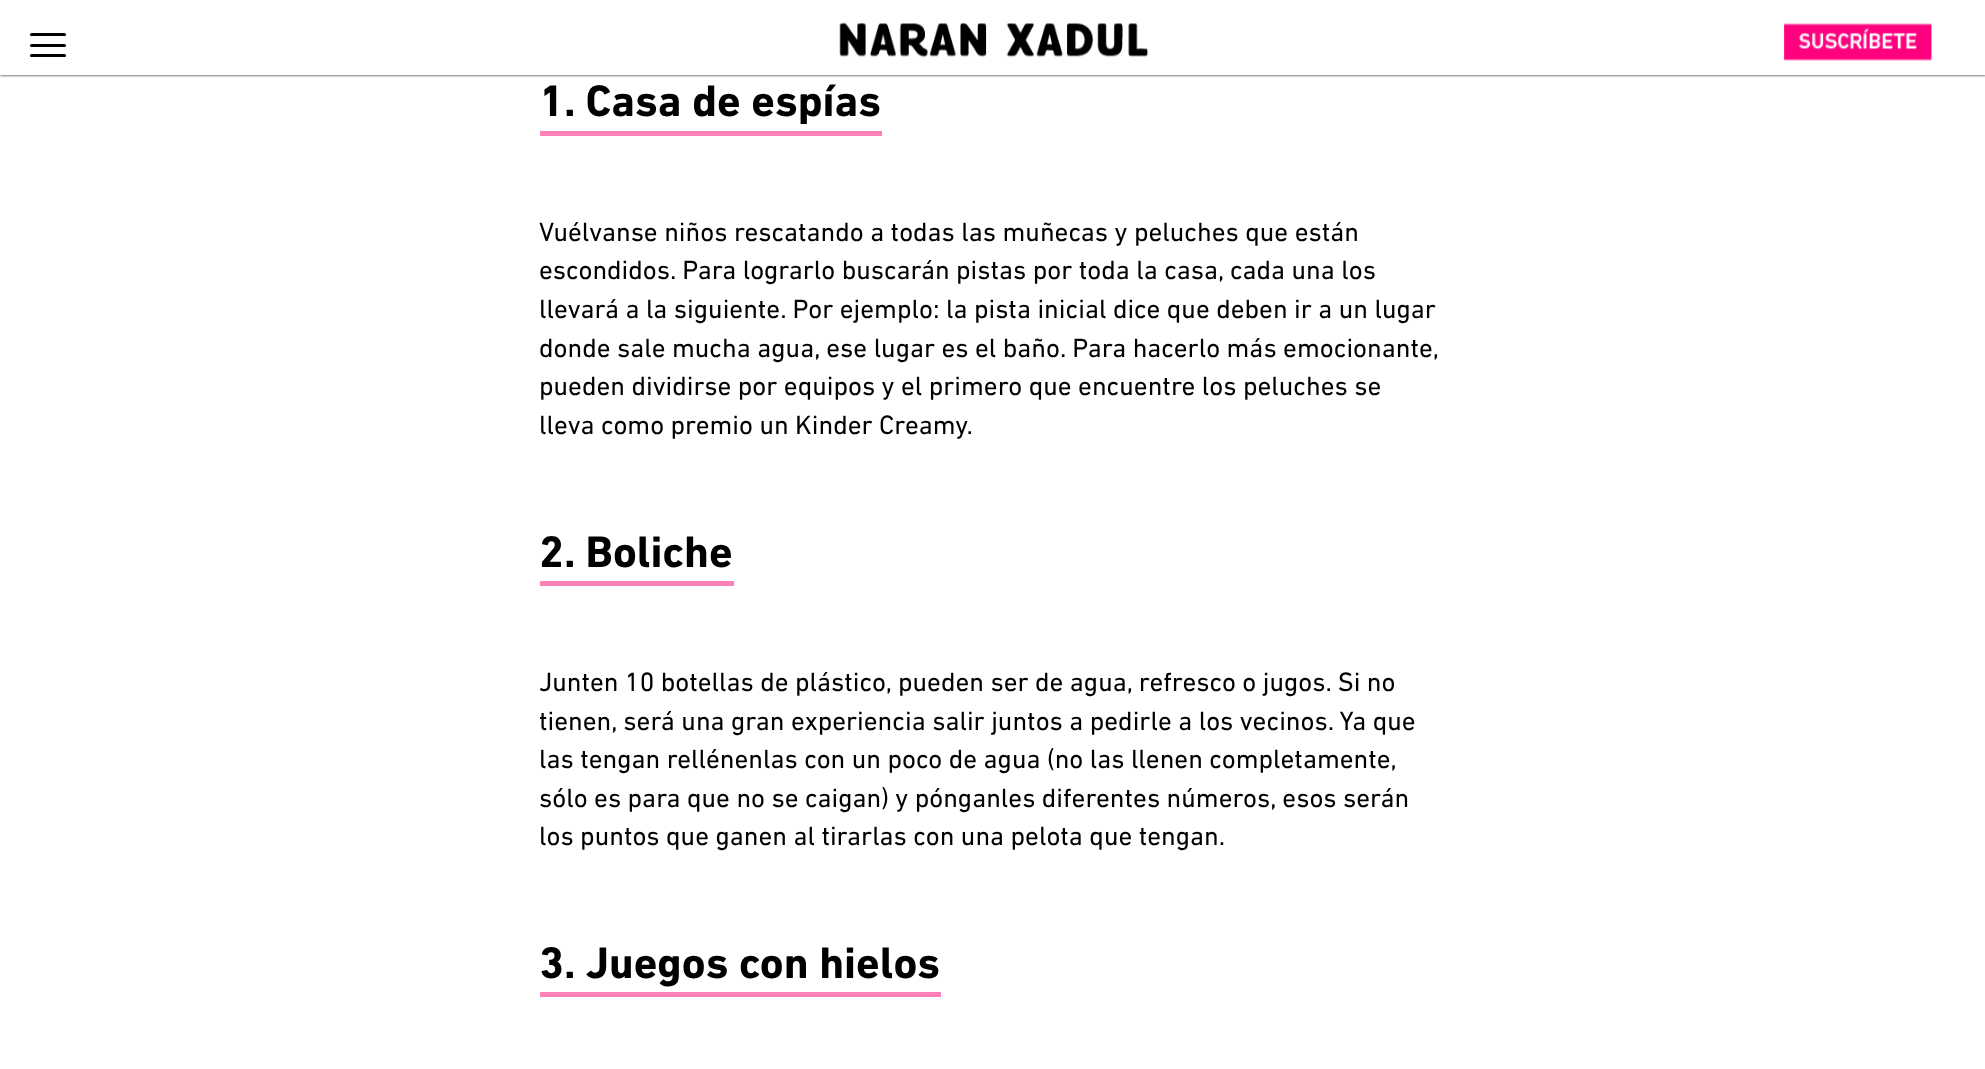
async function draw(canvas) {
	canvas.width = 1985;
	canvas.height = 1069;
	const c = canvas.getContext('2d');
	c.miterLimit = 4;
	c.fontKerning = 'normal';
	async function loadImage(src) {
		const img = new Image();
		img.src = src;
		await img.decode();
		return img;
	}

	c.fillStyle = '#fff';
	c.fillRect(0, 0, 1985, 1069);
	c.save();
	c.beginPath();
	c.rect(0, 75, 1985, 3);
	c.clip();
	c.fillStyle = '#000';
	c.filter = 'blur(1.5px)';
	c.beginPath();
	c.rect(0, 0, 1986, 75);
	c.fill();
	c.filter = 'none';
	c.restore();
	c.fillStyle = '#000';
	c.beginPath();
	c.roundRect(30, 54, 36, 3, 1.5);
	c.fill();
	c.beginPath();
	c.roundRect(30, 33, 36, 3, 1.5);
	c.fill();
	c.beginPath();
	c.roundRect(30, 44, 36, 3, 1.5);
	c.fill();
	c.drawImage(await loadImage('img1.png'), 839, 22, 309, 36);
	c.drawImage(await loadImage('img2.png'), 1784, 23, 148, 38);
	c.fillStyle = '#ff80b6';
	c.fillRect(540, 131, 342, 5);
	c.font = 'bold 45px DIN Next';
	c.fillStyle = '#000';
	c.fillText('1. Casa de espías', 539, 116);
	c.font = '27px DIN Next';
	for (const [text, x, y] of [
		['Vuélvanse niños rescatando a todas las muñecas y peluches que están', 539, 241],
		['escondidos. Para lograrlo buscarán pistas por toda la casa, cada una los', 539, 279],
		['llevará a la siguiente. Por ejemplo: la pista inicial dice que deben ir a un lugar', 539, 318],
		['donde sale mucha agua, ese lugar es el baño. Para hacerlo más emocionante,', 539, 357],
		['pueden dividirse por equipos y el primero que encuentre los peluches se', 539, 395],
		['lleva como premio un Kinder Creamy.', 539, 434],
	]) {
		c.fillText(text, x, y);
	}
	c.fillStyle = '#ff80b6';
	c.fillRect(540, 581, 194, 5);
	c.font = 'bold 45px DIN Next';
	c.fillStyle = '#000';
	c.fillText('2. Boliche', 539, 567);
	c.font = '27px DIN Next';
	for (const [text, x, y] of [
		['Junten 10 botellas de plástico, pueden ser de agua, refresco o jugos. Si no', 539, 691],
		['tienen, será una gran experiencia salir juntos a pedirle a los vecinos. Ya que', 539, 730],
		['las tengan rellénenlas con un poco de agua (no las llenen completamente,', 539, 768],
		['sólo es para que no se caigan) y pónganles diferentes números, esos serán', 539, 807],
		['los puntos que ganen al tirarlas con una pelota que tengan.', 539, 845],
	]) {
		c.fillText(text, x, y);
	}
	c.fillStyle = '#ff80b6';
	c.fillRect(540, 992, 401, 5);
	c.font = 'bold 45px DIN Next';
	c.fillStyle = '#000';
	c.fillText('3. Juegos con hielos', 539, 978);
}

draw(document.querySelector('canvas'));
